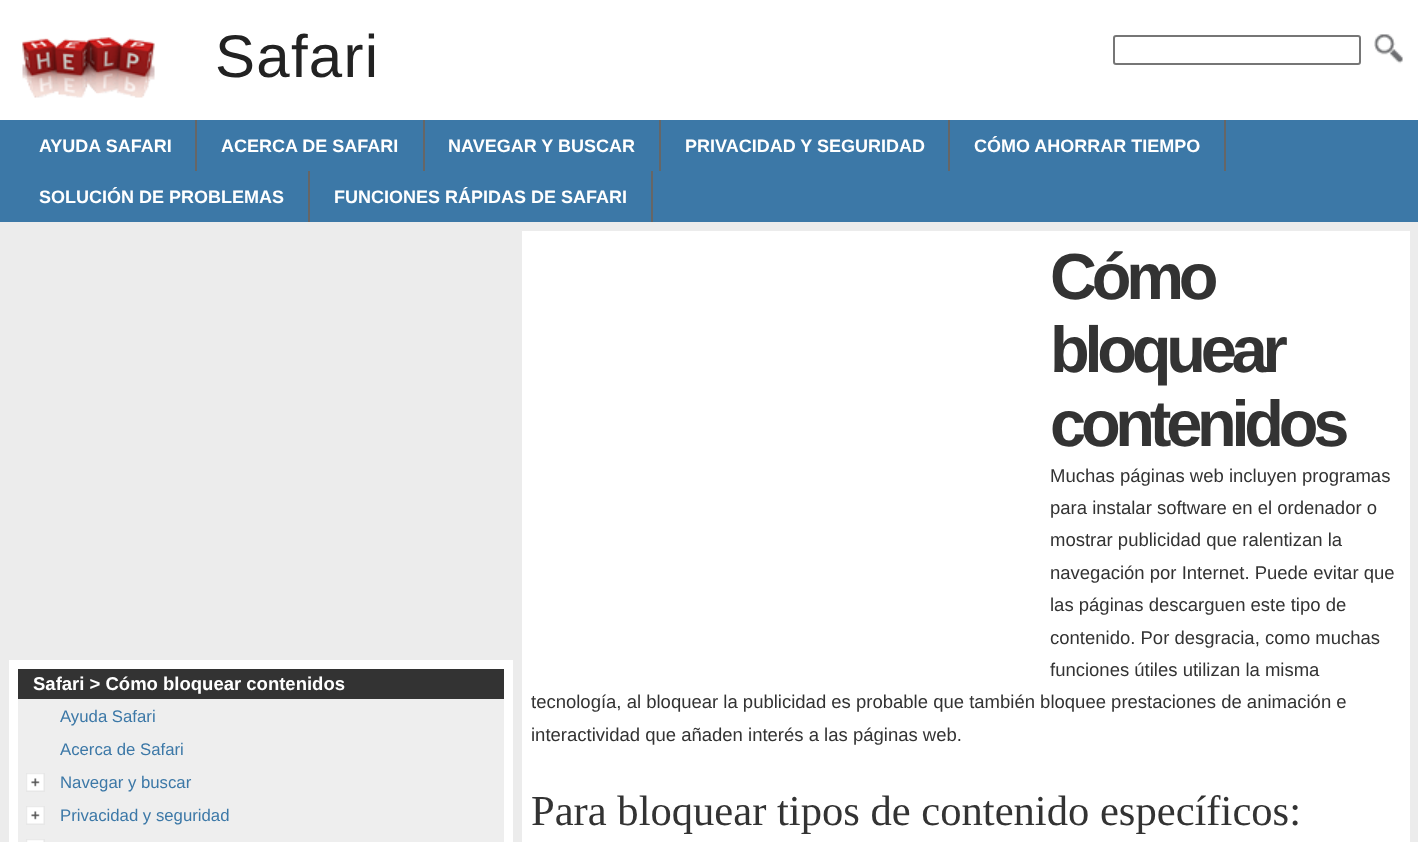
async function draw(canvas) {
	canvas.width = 1418;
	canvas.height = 842;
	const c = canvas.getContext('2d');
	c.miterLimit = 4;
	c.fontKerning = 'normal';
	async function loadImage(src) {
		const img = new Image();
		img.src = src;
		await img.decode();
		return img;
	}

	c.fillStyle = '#fff';
	c.fillRect(0, 0, 1418, 842);
	c.drawImage(await loadImage('img1.png'), 22, 37, 133, 61);
	c.letterSpacing = '1.25px';
	c.font = '60px Liberation Sans';
	c.fillStyle = '#222';
	c.fillText('Safari', 215, 77);
	c.beginPath();
	c.roundRect(1114, 36, 246, 28, 2);
	c.strokeStyle = '#767676';
	c.lineWidth = 2;
	c.stroke();
	c.drawImage(await loadImage('img2.png'), 1374, 34, 29, 30);
	c.fillStyle = '#3c78a7';
	c.fillRect(0, 120, 1418, 102);
	c.fillStyle = '#666';
	c.fillRect(195, 120, 2, 51);
	c.letterSpacing = '0px';
	c.font = 'bold 18px Liberation Sans';
	c.fillStyle = '#fff';
	c.fillText('AYUDA SAFARI', 39, 152);
	c.fillStyle = '#666';
	c.fillRect(423, 120, 2, 51);
	c.fillStyle = '#fff';
	c.fillText('ACERCA DE SAFARI', 221, 152);
	c.fillStyle = '#666';
	c.fillRect(659, 120, 2, 51);
	c.fillStyle = '#fff';
	c.fillText('NAVEGAR Y BUSCAR', 448, 152);
	c.fillStyle = '#666';
	c.fillRect(948, 120, 2, 51);
	c.fillStyle = '#fff';
	c.fillText('PRIVACIDAD Y SEGURIDAD', 685, 152);
	c.fillStyle = '#666';
	c.fillRect(1224, 120, 2, 51);
	c.fillStyle = '#fff';
	c.fillText('CÓMO AHORRAR TIEMPO', 974, 152);
	c.fillStyle = '#666';
	c.fillRect(308, 171, 2, 51);
	c.fillStyle = '#fff';
	c.fillText('SOLUCIÓN DE PROBLEMAS', 39, 203);
	c.fillStyle = '#666';
	c.fillRect(651, 171, 2, 51);
	c.fillStyle = '#fff';
	c.fillText('FUNCIONES RÁPIDAS DE SAFARI', 334, 203);
	for (const [x, y, w, h, color] of [
		[0, 222, 1418, 620, '#ececec'],
		[9, 660, 504, 182, '#fff'],
		[18, 669, 486, 30, '#333'],
	]) {
		c.fillStyle = color;
		c.fillRect(x, y, w, h);
	}
	c.font = 'bold 18.5px Liberation Sans';
	c.fillStyle = '#fff';
	c.fillText('Safari > Cómo bloquear contenidos', 33, 690);
	c.fillStyle = '#eee';
	c.fillRect(18, 699, 486, 143);
	c.font = '16.75px Liberation Sans';
	c.fillStyle = '#3c78a7';
	c.fillText('Ayuda Safari', 60, 722);
	c.fillText('Acerca de Safari', 60, 755);
	c.drawImage(await loadImage('img3.png'), 26, 773, 19, 19);
	c.fillText('Navegar y buscar', 60, 788);
	c.drawImage(await loadImage('img3.png'), 26, 806, 19, 19);
	c.fillText('Privacidad y seguridad', 60, 821);
	c.drawImage(await loadImage('img4.png'), 26, 839, 19, 3);
	c.fillStyle = '#fff';
	c.fillRect(522, 231, 888, 611);
	c.letterSpacing = '-5.25px';
	c.font = 'bold 65px Liberation Sans';
	c.fillStyle = '#333';
	for (const [text, x, y] of [
		['Cómo', 1050, 299],
		['bloquear', 1050, 372],
		['contenidos', 1050, 446],
	]) {
		c.fillText(text, x, y);
	}
	c.letterSpacing = '0px';
	c.font = '18.5px Liberation Sans';
	for (const [text, x, y] of [
		['Muchas páginas web incluyen programas', 1050, 482],
		['para instalar software en el ordenador o', 1050, 514],
		['mostrar publicidad que ralentizan la', 1050, 546],
		['navegación por Internet. Puede evitar que', 1050, 579],
		['las páginas descarguen este tipo de', 1050, 611],
		['contenido. Por desgracia, como muchas', 1050, 644],
		['funciones útiles utilizan la misma', 1050, 676],
		['tecnología, al bloquear la publicidad es probable que también bloquee prestaciones de animación e', 531, 708],
		['interactividad que añaden interés a las páginas web.', 531, 741],
	]) {
		c.fillText(text, x, y);
	}
	c.font = '42.6px Liberation Serif';
	c.fillText('Para bloquear tipos de contenido específicos:', 531, 825);
}

draw(document.querySelector('canvas'));
